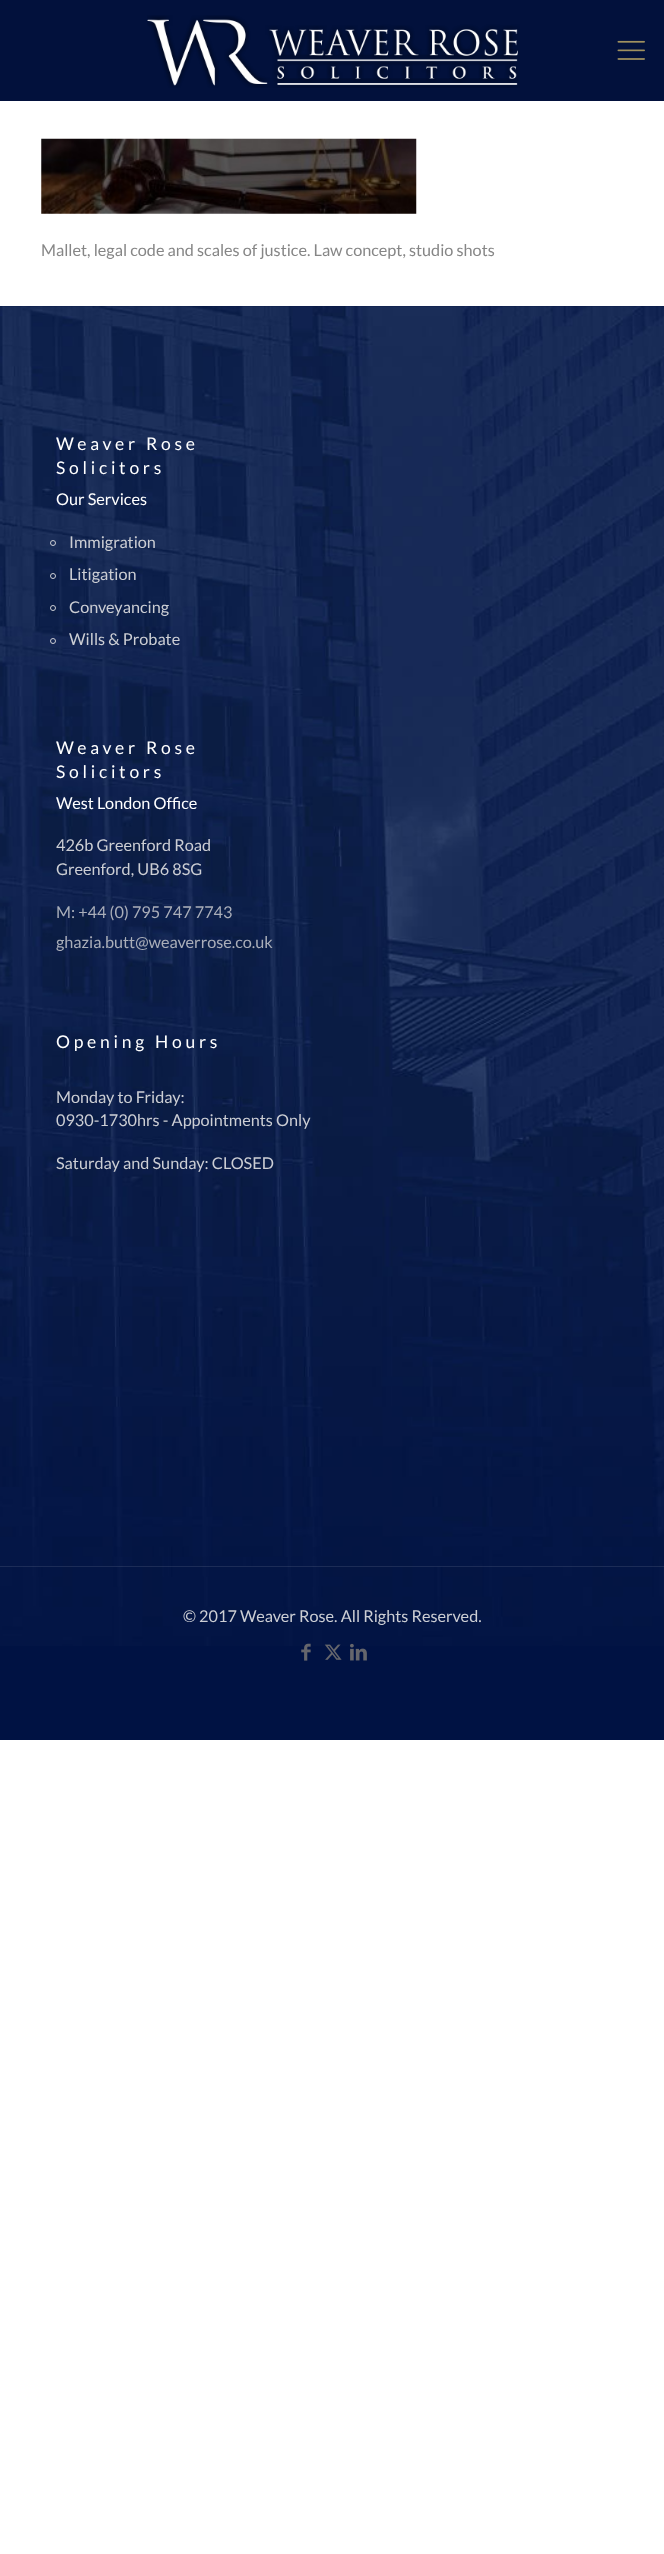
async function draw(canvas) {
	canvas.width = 664;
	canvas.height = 2554;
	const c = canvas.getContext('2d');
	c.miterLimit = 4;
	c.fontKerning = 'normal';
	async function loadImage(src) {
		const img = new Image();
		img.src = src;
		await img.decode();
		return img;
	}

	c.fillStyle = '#fff';
	c.fillRect(0, 0, 664, 2554);
	c.fillStyle = '#02113c';
	c.fillRect(0, 0, 664, 101);
	c.drawImage(await loadImage('img1.png'), 147, 15, 373, 73);
	c.drawImage(await loadImage('img2.png'), 617, 40, 28, 20);
	c.drawImage(await loadImage('img3.png'), 41, 138, 376, 76);
	c.font = '16.25px Lato';
	c.fillStyle = '#868686';
	c.fillText('Mallet, legal code and scales of justice. Law concept, studio shots', 41, 256);
	c.fillStyle = '#001243';
	c.fillRect(0, 306, 664, 1434);
	c.drawImage(await loadImage('img4.png'), 0, 306, 664, 1340);
	c.letterSpacing = '3.75px';
	c.font = '17.5px Lato';
	c.fillStyle = '#fff';
	c.fillText('Weaver Rose', 56, 450);
	c.fillText('Solicitors', 56, 474);
	c.letterSpacing = '0px';
	c.font = '16.25px Lato';
	c.fillText('Our Services', 56, 505);
	c.beginPath();
	c.arc(53, 543, 2.5, 0, 2 * Math.PI);
	c.strokeStyle = '#ccced4';
	c.stroke();
	c.fillStyle = '#ccced4';
	c.fillText('Immigration', 69, 548);
	c.beginPath();
	c.arc(53, 576, 2.5, 0, 2 * Math.PI);
	c.stroke();
	c.fillText('Litigation', 69, 580);
	c.beginPath();
	c.arc(53, 608, 2.5, 0, 2 * Math.PI);
	c.stroke();
	c.fillText('Conveyancing', 69, 613);
	c.beginPath();
	c.arc(53, 641, 2.5, 0, 2 * Math.PI);
	c.stroke();
	c.fillText('Wills & Probate', 69, 645);
	c.letterSpacing = '3.75px';
	c.font = '17.5px Lato';
	c.fillStyle = '#fff';
	c.fillText('Weaver Rose', 56, 754);
	c.fillText('Solicitors', 56, 778);
	c.letterSpacing = '0px';
	c.font = '16.25px Lato';
	c.fillText('West London Office', 56, 809);
	c.fillStyle = '#ccced4';
	c.fillText('426b Greenford Road', 56, 851);
	c.fillText('Greenford, UB6 8SG', 56, 875);
	c.fillStyle = '#aaaeb9';
	c.fillText('M: +44 (0) 795 747 7743', 56, 918);
	c.fillText('ghazia.butt@weaverrose.co.uk', 56, 948);
	c.letterSpacing = '3.75px';
	c.font = '17.5px Lato';
	c.fillStyle = '#fff';
	c.fillText('Opening Hours', 56, 1048);
	c.letterSpacing = '0px';
	c.font = '16.25px Lato';
	c.fillStyle = '#ccced4';
	for (const [text, x, y] of [
		['Monday to Friday:', 56, 1103],
		['0930-1730hrs - Appointments Only', 56, 1126],
		['Saturday and Sunday: CLOSED', 56, 1169],
	]) {
		c.fillText(text, x, y);
	}
	c.fillStyle = '#ffffff1a';
	c.fillRect(0, 1566, 664, 1);
	c.fillStyle = '#ccced4';
	c.fillText('© 2017 Weaver Rose. All Rights Reserved.', 183, 1622);
	c.drawImage(await loadImage('img5.png'), 301, 1643, 10, 18);
	c.drawImage(await loadImage('img6.png'), 324, 1644, 18, 16);
	c.drawImage(await loadImage('img7.png'), 350, 1643, 17, 18);
}

draw(document.querySelector('canvas'));
